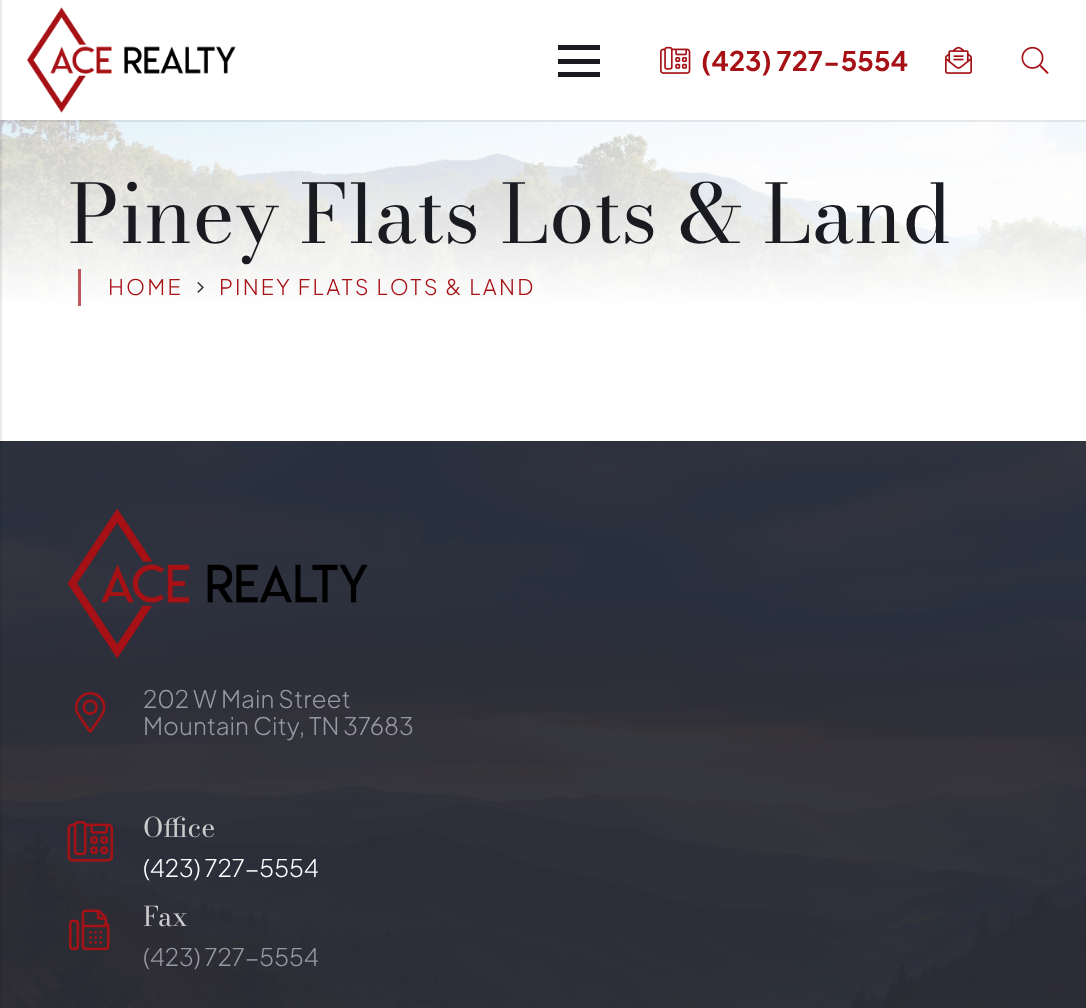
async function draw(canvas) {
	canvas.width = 1086;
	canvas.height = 1008;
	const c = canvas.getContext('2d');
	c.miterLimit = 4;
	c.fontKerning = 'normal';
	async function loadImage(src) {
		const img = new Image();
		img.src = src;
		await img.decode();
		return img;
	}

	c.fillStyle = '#fff';
	c.fillRect(0, 0, 1086, 1008);
	c.drawImage(await loadImage('img5.png'), 0, 120, 1086, 186);
	c.fillStyle = '#00000014';
	c.fillRect(0, 120, 1086, 2);
	c.drawImage(await loadImage('img1.png'), 27, 7, 209, 106);
	c.drawImage(await loadImage('img7.png'), 0, 441, 1086, 567);
	for (const [x, y, w, h, color] of [
		[0, 0, 2, 1008, '#00000014'],
		[558, 59, 42, 5, '#1a1a21'],
		[558, 45, 42, 5, '#1a1a21'],
		[558, 72, 42, 5, '#1a1a21'],
	]) {
		c.fillStyle = color;
		c.fillRect(x, y, w, h);
	}
	c.drawImage(await loadImage('img2.png'), 660, 46, 31, 28);
	c.font = 'bold 27px Plus Jakarta Sans';
	c.fillStyle = '#a61116';
	c.fillText('(423) 727-5554', 701, 71);
	c.drawImage(await loadImage('img3.png'), 945, 46, 27, 28);
	c.drawImage(await loadImage('img4.png'), 1021, 46, 28, 28);
	c.font = '81px Bodoni Moda';
	c.fillStyle = '#1a1a21';
	c.fillText('Piney Flats Lots & Land', 68, 243);
	c.fillStyle = '#a61116b3';
	c.fillRect(78, 269, 3, 37);
	c.letterSpacing = '2.2px';
	c.font = '300 21.6px Plus Jakarta Sans';
	c.fillStyle = '#a61116';
	c.fillText('HOME', 108, 295);
	c.drawImage(await loadImage('img6.png'), 197, 282, 7, 11);
	c.fillText('PINEY FLATS LOTS & LAND', 219, 295);
	c.drawImage(await loadImage('img8.png'), 67, 508, 301, 151);
	c.drawImage(await loadImage('img9.png'), 75, 692, 31, 41);
	c.letterSpacing = '0px';
	c.font = '300 24.25px Plus Jakarta Sans';
	c.fillStyle = '#9698a3';
	c.fillText('202 W Main Street', 143, 708);
	c.fillText('Mountain City, TN 37683', 143, 735);
	c.drawImage(await loadImage('img10.png'), 67, 821, 47, 41);
	c.font = '27px Bodoni Moda';
	c.fillStyle = '#ccc';
	c.fillText('Office', 143, 837);
	c.font = '300 24.25px Plus Jakarta Sans';
	c.fillStyle = '#fff';
	c.fillText('(423) 727-5554', 143, 877);
	c.drawImage(await loadImage('img11.png'), 69, 909, 41, 42);
	c.font = '27px Bodoni Moda';
	c.fillStyle = '#ccc';
	c.fillText('Fax', 143, 926);
	c.font = '300 24.25px Plus Jakarta Sans';
	c.fillStyle = '#9698a3';
	c.fillText('(423) 727-5554', 143, 966);
}

draw(document.querySelector('canvas'));
